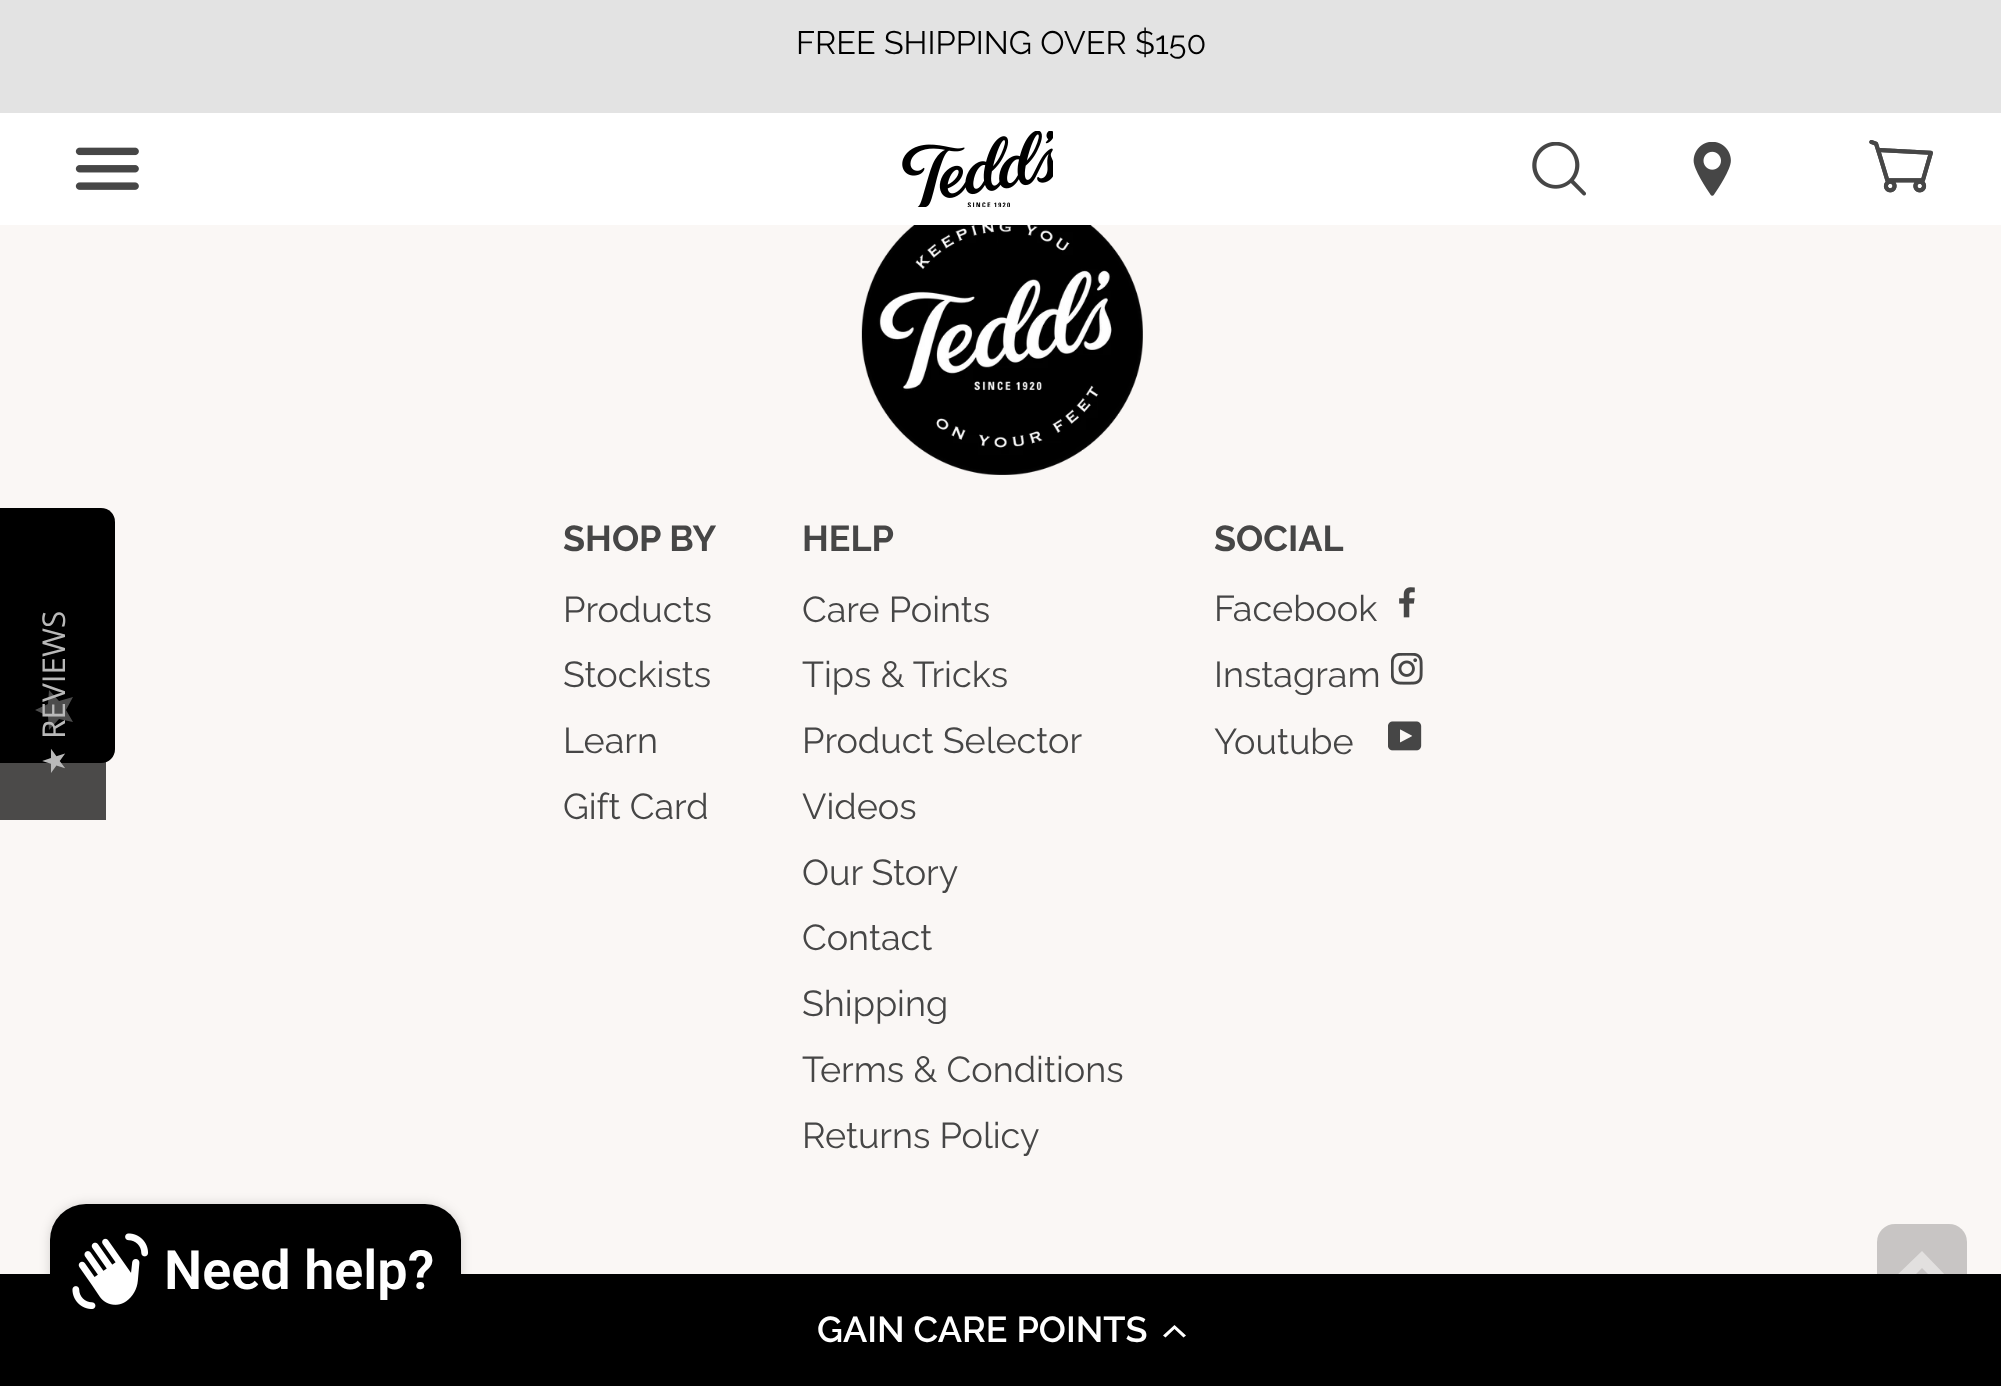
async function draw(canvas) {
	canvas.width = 2001;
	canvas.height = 1386;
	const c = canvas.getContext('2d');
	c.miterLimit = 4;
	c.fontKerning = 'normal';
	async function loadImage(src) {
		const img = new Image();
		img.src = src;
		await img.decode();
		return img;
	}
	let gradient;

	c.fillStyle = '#faf7f5';
	c.fillRect(0, 0, 2001, 1386);
	c.fillStyle = '#000';
	c.beginPath();
	c.moveTo(0, 763);
	c.lineTo(0, 508);
	c.lineTo(101, 508);
	c.bezierCurveTo(109, 508, 115, 514, 115, 522);
	c.lineTo(115, 749);
	c.bezierCurveTo(115, 757, 109, 763, 101, 763);
	c.closePath();
	c.fill();
	gradient = c.createLinearGradient(35, 730, 35, 690);
	gradient.addColorStop(1, '#fff');
	gradient.addColorStop(1, '#eaeaea');
	c.fillStyle = gradient;
	c.beginPath();
	c.moveTo(66, 710);
	c.lineTo(73, 697);
	c.lineTo(59, 701);
	c.lineTo(49, 690);
	c.lineTo(48, 704);
	c.lineTo(35, 710);
	c.lineTo(48, 716);
	c.lineTo(49, 730);
	c.lineTo(59, 719);
	c.lineTo(73, 722);
	c.closePath();
	c.fill();
	c.fillStyle = '#fff';
	c.fillRect(0, 113, 2001, 112);
	c.fillStyle = '#e3e3e3';
	c.fillRect(0, 0, 2001, 113);
	c.font = '100 32.4px Raleway';
	c.fillStyle = '#000';
	c.fillText('FREE SHIPPING OVER $150', 796, 54);
	c.drawImage(await loadImage('img1.png'), 75, 147, 64, 43);
	c.drawImage(await loadImage('img2.png'), 902, 131, 151, 76);
	c.drawImage(await loadImage('img3.png'), 1532, 142, 54, 54);
	c.drawImage(await loadImage('img4.png'), 1693, 142, 38, 54);
	c.drawImage(await loadImage('img5.png'), 1869, 140, 64, 53);
	c.drawImage(await loadImage('img6.png'), 861, 225, 282, 250);
	c.font = 'bold 36px Raleway';
	c.fillStyle = '#464646';
	c.fillText('SHOP BY', 563, 551);
	c.font = '100 36px Raleway';
	for (const [text, x, y] of [
		['Products', 563, 622],
		['Stockists', 563, 687],
		['Learn', 563, 753],
		['Gift Card', 563, 819],
	]) {
		c.fillText(text, x, y);
	}
	c.font = 'bold 36px Raleway';
	c.fillText('HELP', 802, 551);
	c.font = '100 36px Raleway';
	for (const [text, x, y] of [
		['Care Points', 802, 622],
		['Tips & Tricks', 802, 687],
		['Product Selector', 802, 753],
		['Videos', 802, 819],
		['Our Story', 802, 885],
		['Contact', 802, 950],
		['Shipping', 802, 1016],
		['Terms & Conditions', 802, 1082],
		['Returns Policy', 802, 1148],
	]) {
		c.fillText(text, x, y);
	}
	c.font = 'bold 36px Raleway';
	c.fillText('SOCIAL', 1214, 551);
	c.font = '100 36px Raleway';
	c.fillText('Facebook', 1214, 621);
	c.drawImage(await loadImage('img7.png'), 1399, 587, 16, 31);
	c.fillText('Instagram', 1214, 687);
	c.drawImage(await loadImage('img8.png'), 1391, 653, 32, 32);
	c.fillText('Youtube', 1214, 754);
	c.drawImage(await loadImage('img9.png'), 1388, 721, 34, 30);
	c.fillStyle = '#000000b3';
	c.fillRect(0, 690, 106, 130);
	c.font = '31.5px Open Sans';
	c.fillStyle = '#b9b9b9';
	c.save();
	c.translate(65, 739);
	c.rotate(-90 * Math.PI / 180);
	c.fillText('REVIEWS', 0, 0);
	c.restore();
	c.font = '31.5px DejaVu Sans';
	c.save();
	c.translate(65, 775);
	c.rotate(-90 * Math.PI / 180);
	c.fillText('★', 0, 0);
	c.restore();
	c.fillStyle = '#00000033';
	c.beginPath();
	c.roundRect(1877, 1224, 90, 90, 18);
	c.fill();
	c.fillStyle = '#e2e0df';
	c.beginPath();
	c.moveTo(1922, 1251);
	c.lineTo(1948, 1278);
	c.lineTo(1940, 1286);
	c.lineTo(1922, 1268);
	c.lineTo(1903, 1287);
	c.lineTo(1894, 1278);
	c.closePath();
	c.fill();
	c.fillStyle = '#000';
	c.fillRect(0, 1274, 2001, 112);
	c.fillStyle = '#00000026';
	c.filter = 'blur(5.5px)';
	c.beginPath();
	c.roundRect(50, 1204, 411, 135, 36);
	c.fill();
	c.filter = 'none';
	c.fillStyle = '#000';
	c.beginPath();
	c.roundRect(50, 1204, 411, 135, 36);
	c.fill();
	c.drawImage(await loadImage('img10.png'), 72, 1233, 77, 76);
	c.font = '600 54px Roboto';
	c.fillStyle = '#fff';
	c.fillText('Need help?', 164, 1289);
	c.font = '100 36px "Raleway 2"';
	c.fillText('GAIN CARE POINTS', 817, 1342);
	c.beginPath();
	c.moveTo(1174.5, 1329);
	c.lineTo(1165.5, 1337.5);
	c.lineTo(1163, 1335.5);
	c.lineTo(1174.5, 1325);
	c.lineTo(1186, 1335.5);
	c.lineTo(1183.5, 1337.5);
	c.closePath();
	c.fill();
}

draw(document.querySelector('canvas'));
